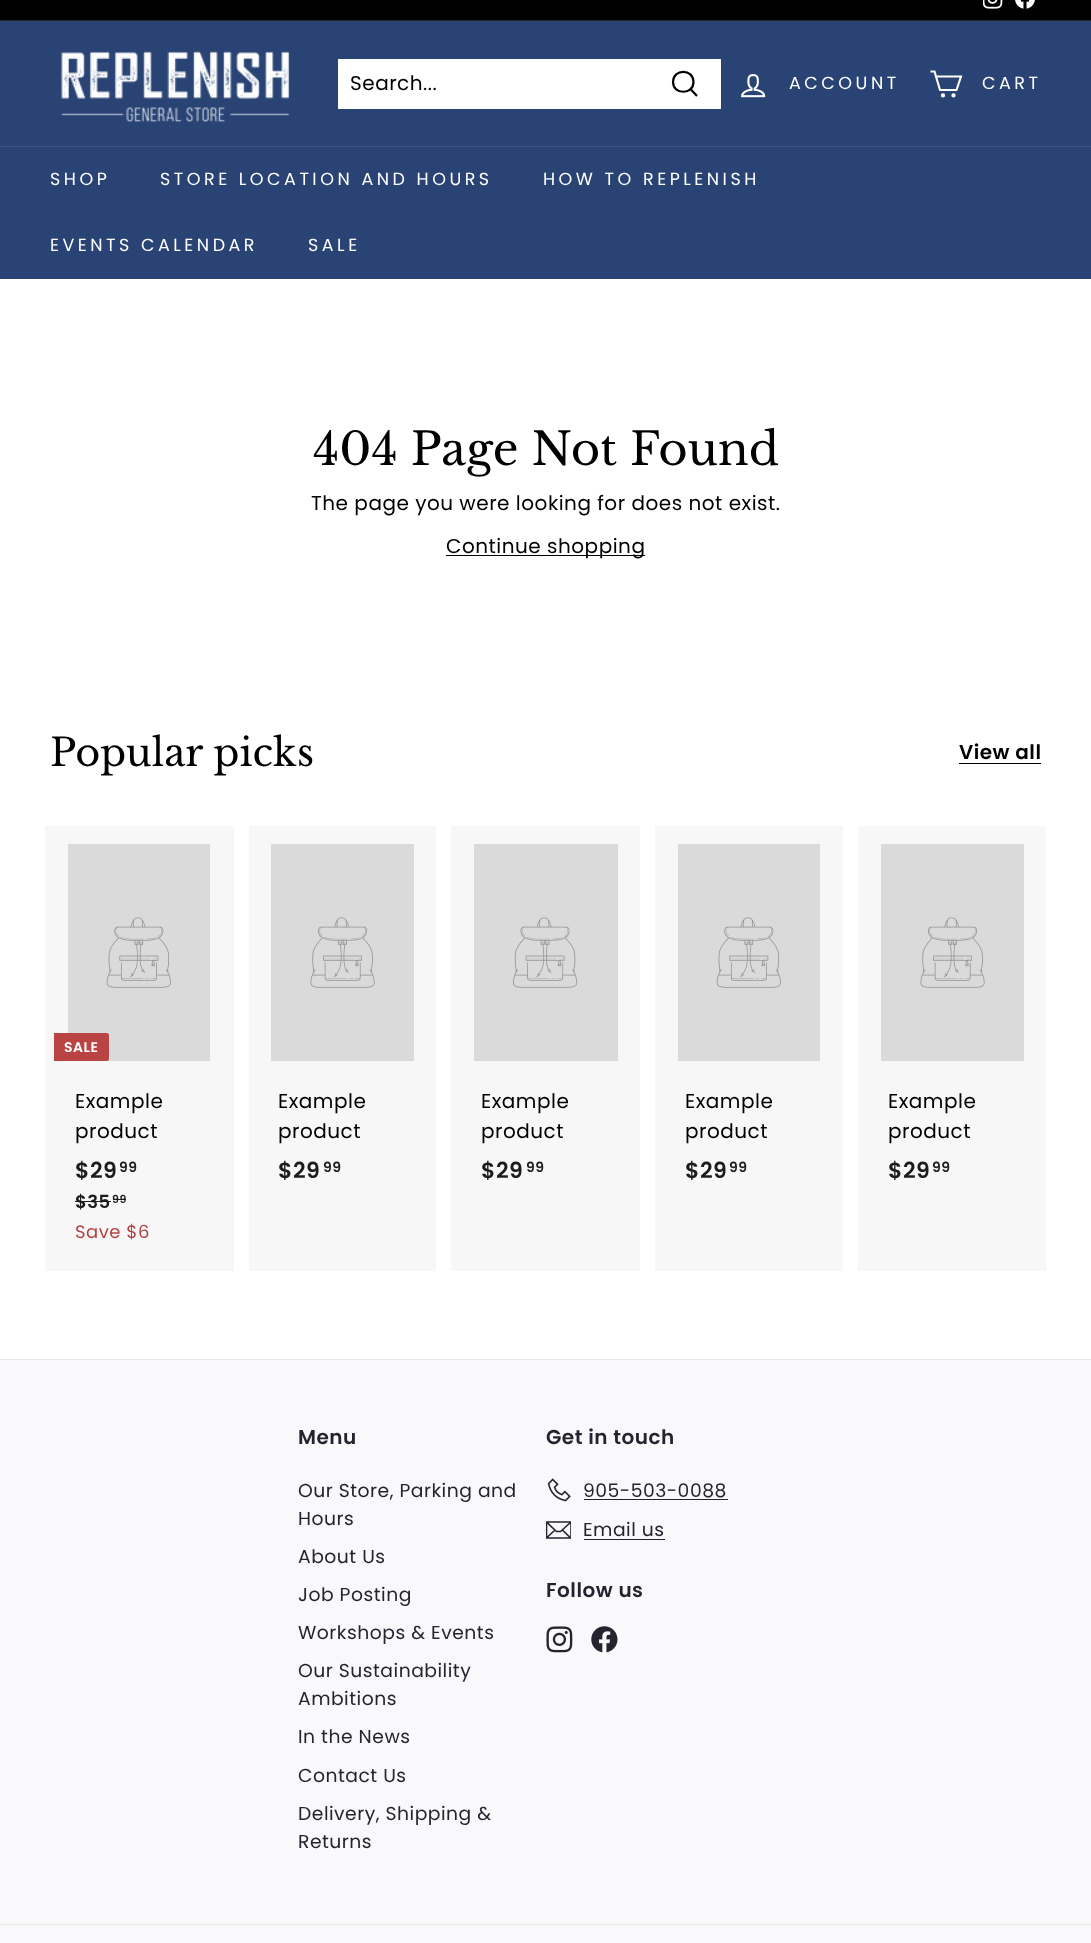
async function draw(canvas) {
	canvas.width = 1091;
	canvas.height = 1943;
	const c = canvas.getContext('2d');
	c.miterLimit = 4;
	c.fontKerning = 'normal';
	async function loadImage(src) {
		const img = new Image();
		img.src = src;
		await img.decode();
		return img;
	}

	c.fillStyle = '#fff';
	c.fillRect(0, 0, 1091, 1943);
	for (const [x, y, w, h, color] of [
		[858, 826, 188, 445, '#f7f7f7'],
		[655, 826, 188, 445, '#f7f7f7'],
		[451, 826, 189, 445, '#f7f7f7'],
		[249, 826, 187, 445, '#f7f7f7'],
		[45, 826, 189, 445, '#f7f7f7'],
		[0, 0, 1091, 20, '#000'],
	]) {
		c.fillStyle = color;
		c.fillRect(x, y, w, h);
	}
	c.drawImage(await loadImage('img1.png'), 983, 0, 20, 9);
	c.drawImage(await loadImage('img2.png'), 1015, 0, 20, 9);
	c.fillStyle = '#262626';
	c.fillRect(0, 20, 1091, 1);
	c.fillStyle = '#294374';
	c.fillRect(0, 21, 1091, 125);
	c.drawImage(await loadImage('img3.png'), 61, 51, 229, 72);
	c.fillStyle = '#fff';
	c.fillRect(338, 59, 383, 50);
	c.letterSpacing = '0.5px';
	c.font = '20px Poppins';
	c.fillStyle = '#000';
	c.fillText('Search...', 350, 90);
	c.beginPath();
	c.moveTo(693.5, 82);
	c.bezierCurveTo(693.5, 95, 673, 95, 673, 82);
	c.bezierCurveTo(673, 68.5, 693.5, 68.5, 693.5, 82);
	c.closePath();
	c.moveTo(697, 96);
	c.lineTo(690.5, 89);
	c.strokeStyle = '#000';
	c.lineWidth = 2.2;
	c.stroke();
	c.drawImage(await loadImage('img4.png'), 741, 74, 25, 24);
	c.letterSpacing = '3.5px';
	c.font = '17.5px Poppins';
	c.fillStyle = '#fff';
	c.fillText('ACCOUNT', 789, 89);
	c.beginPath();
	c.moveTo(936, 76.5);
	c.lineTo(961, 76.5);
	c.lineTo(956.5, 90);
	c.lineTo(940, 90);
	c.lineTo(934.5, 71.5);
	c.lineTo(930.5, 71.5);
	c.strokeStyle = '#fff';
	c.lineWidth = 2.1;
	c.stroke();
	c.beginPath();
	c.arc(943, 95.4, 1.1, 0, 2 * Math.PI);
	c.stroke();
	c.beginPath();
	c.arc(953.5, 95.4, 1.1, 0, 2 * Math.PI);
	c.stroke();
	c.fillText('CART', 982, 89);
	c.fillStyle = '#3e5682';
	c.fillRect(0, 146, 1091, 1);
	c.fillStyle = '#294374';
	c.fillRect(0, 147, 1091, 132);
	c.fillStyle = '#fff';
	for (const [text, x, y] of [
		['SHOP', 50, 185],
		['STORE LOCATION AND HOURS', 160, 185],
		['HOW TO REPLENISH', 543, 185],
		['EVENTS CALENDAR', 50, 251],
		['SALE', 308, 251],
	]) {
		c.fillText(text, x, y);
	}
	c.letterSpacing = '0px';
	c.font = '45px Libre Baskerville';
	c.fillStyle = '#000';
	c.fillText('404 Page Not Found', 313, 465);
	c.letterSpacing = '0.5px';
	c.font = '20px Poppins';
	c.fillText('The page you were looking for does not exist.', 311, 510);
	c.fillRect(446, 555, 199, 1);
	c.fillText('Continue shopping', 446, 553);
	c.letterSpacing = '0px';
	c.font = '38.25px Libre Baskerville';
	c.fillText('Popular picks', 50, 766);
	c.letterSpacing = '0.5px';
	c.font = '600 20px Poppins';
	c.fillText('View all', 959, 759);
	c.fillRect(959, 763, 82, 1);
	c.fillStyle = '#dadada';
	c.fillRect(68, 844, 142, 217);
	c.drawImage(await loadImage('img5.png'), 106, 917, 65, 71);
	c.fillStyle = '#ba4444';
	c.beginPath();
	c.roundRect(54, 1033, 55, 28, [0, 2.5, 2.5, 0]);
	c.fill();
	c.font = '600 14px Poppins';
	c.fillStyle = '#fff';
	c.fillText('SALE', 64, 1052);
	c.font = '20px Poppins';
	c.fillStyle = '#000';
	c.fillText('Example', 75, 1108);
	c.fillText('product', 75, 1138);
	c.font = '600 22px Poppins';
	c.fillStyle = '#1b1c1c';
	c.fillText('$29', 75, 1178);
	c.font = '600 14px Poppins';
	c.fillText('99', 119, 1172);
	c.font = '600 18px Poppins';
	c.fillText('$35', 75, 1208);
	c.fillRect(75, 1201, 36, 1);
	c.font = '600 11px Poppins';
	c.fillText('99', 112, 1203);
	c.fillRect(113, 1199, 13, 1);
	c.font = '18px Poppins';
	c.fillStyle = '#b44242';
	c.fillText('Save $6', 75, 1238);
	c.fillStyle = '#dadada';
	c.fillRect(271, 844, 143, 217);
	c.drawImage(await loadImage('img6.png'), 310, 917, 65, 71);
	c.font = '20px Poppins';
	c.fillStyle = '#000';
	c.fillText('Example', 278, 1108);
	c.fillText('product', 278, 1138);
	c.font = '600 22px Poppins';
	c.fillStyle = '#1b1c1c';
	c.fillText('$29', 278, 1178);
	c.font = '600 14px Poppins';
	c.fillText('99', 323, 1172);
	c.fillStyle = '#dadada';
	c.fillRect(474, 844, 144, 217);
	c.drawImage(await loadImage('img7.png'), 513, 917, 65, 71);
	c.font = '20px Poppins';
	c.fillStyle = '#000';
	c.fillText('Example', 481, 1108);
	c.fillText('product', 481, 1138);
	c.font = '600 22px Poppins';
	c.fillStyle = '#1b1c1c';
	c.fillText('$29', 481, 1178);
	c.font = '600 14px Poppins';
	c.fillText('99', 526, 1172);
	c.fillStyle = '#dadada';
	c.fillRect(678, 844, 142, 217);
	c.drawImage(await loadImage('img5.png'), 716, 917, 65, 71);
	c.font = '20px Poppins';
	c.fillStyle = '#000';
	c.fillText('Example', 685, 1108);
	c.fillText('product', 685, 1138);
	c.font = '600 22px Poppins';
	c.fillStyle = '#1b1c1c';
	c.fillText('$29', 685, 1178);
	c.font = '600 14px Poppins';
	c.fillText('99', 729, 1172);
	c.fillStyle = '#dadada';
	c.fillRect(881, 844, 143, 217);
	c.drawImage(await loadImage('img6.png'), 920, 917, 65, 71);
	c.font = '20px Poppins';
	c.fillStyle = '#000';
	c.fillText('Example', 888, 1108);
	c.fillText('product', 888, 1138);
	c.font = '600 22px Poppins';
	c.fillStyle = '#1b1c1c';
	c.fillText('$29', 888, 1178);
	c.font = '600 14px Poppins';
	c.fillText('99', 932, 1172);
	c.fillStyle = '#f9f9fb';
	c.fillRect(0, 1360, 1091, 583);
	c.fillStyle = '#e8e8e1';
	c.fillRect(0, 1359, 1091, 1);
	c.font = '600 20px Poppins';
	c.fillStyle = '#242430';
	c.fillText('Menu', 298, 1444);
	c.font = '18.75px Poppins';
	for (const [text, x, y] of [
		['Our Store, Parking and', 298, 1497],
		['Hours', 298, 1525],
		['About Us', 298, 1563],
		['Job Posting', 298, 1601],
		['Workshops & Events', 298, 1639],
		['Our Sustainability', 298, 1677],
		['Ambitions', 298, 1705],
		['In the News', 298, 1743],
		['Contact Us', 298, 1782],
		['Delivery, Shipping &', 298, 1820],
		['Returns', 298, 1848],
	]) {
		c.fillText(text, x, y);
	}
	c.font = '600 20px Poppins';
	c.fillText('Get in touch', 546, 1444);
	c.drawImage(await loadImage('img8.png'), 547, 1478, 24, 24);
	c.font = '18.75px Poppins';
	c.fillText('905-503-0088', 583, 1497);
	c.fillRect(584, 1499, 144, 1);
	c.save();
	c.beginPath();
	c.rect(546, 1518, 25, 25);
	c.clip();
	c.beginPath();
	c.moveTo(571, 1538);
	c.lineTo(546.5, 1538);
	c.lineTo(546.5, 1522);
	c.lineTo(571, 1522);
	c.closePath();
	c.moveTo(546.5, 1522);
	c.lineTo(556.5, 1531.5);
	c.lineTo(560.5, 1531.5);
	c.lineTo(571, 1522);
	c.moveTo(555, 1530);
	c.lineTo(547, 1537.5);
	c.moveTo(570.5, 1538);
	c.lineTo(562.5, 1530);
	c.strokeStyle = '#242430';
	c.lineWidth = 1.6;
	c.stroke();
	c.restore();
	c.fillText('Email us', 583, 1536);
	c.fillRect(584, 1539, 81, 1);
	c.font = '600 20px Poppins';
	c.fillText('Follow us', 546, 1597);
	c.drawImage(await loadImage('img9.png'), 546, 1626, 27, 27);
	c.drawImage(await loadImage('img10.png'), 591, 1626, 27, 27);
	c.fillStyle = '#e8e8e1';
	c.fillRect(0, 1924, 1091, 1);
}

draw(document.querySelector('canvas'));
